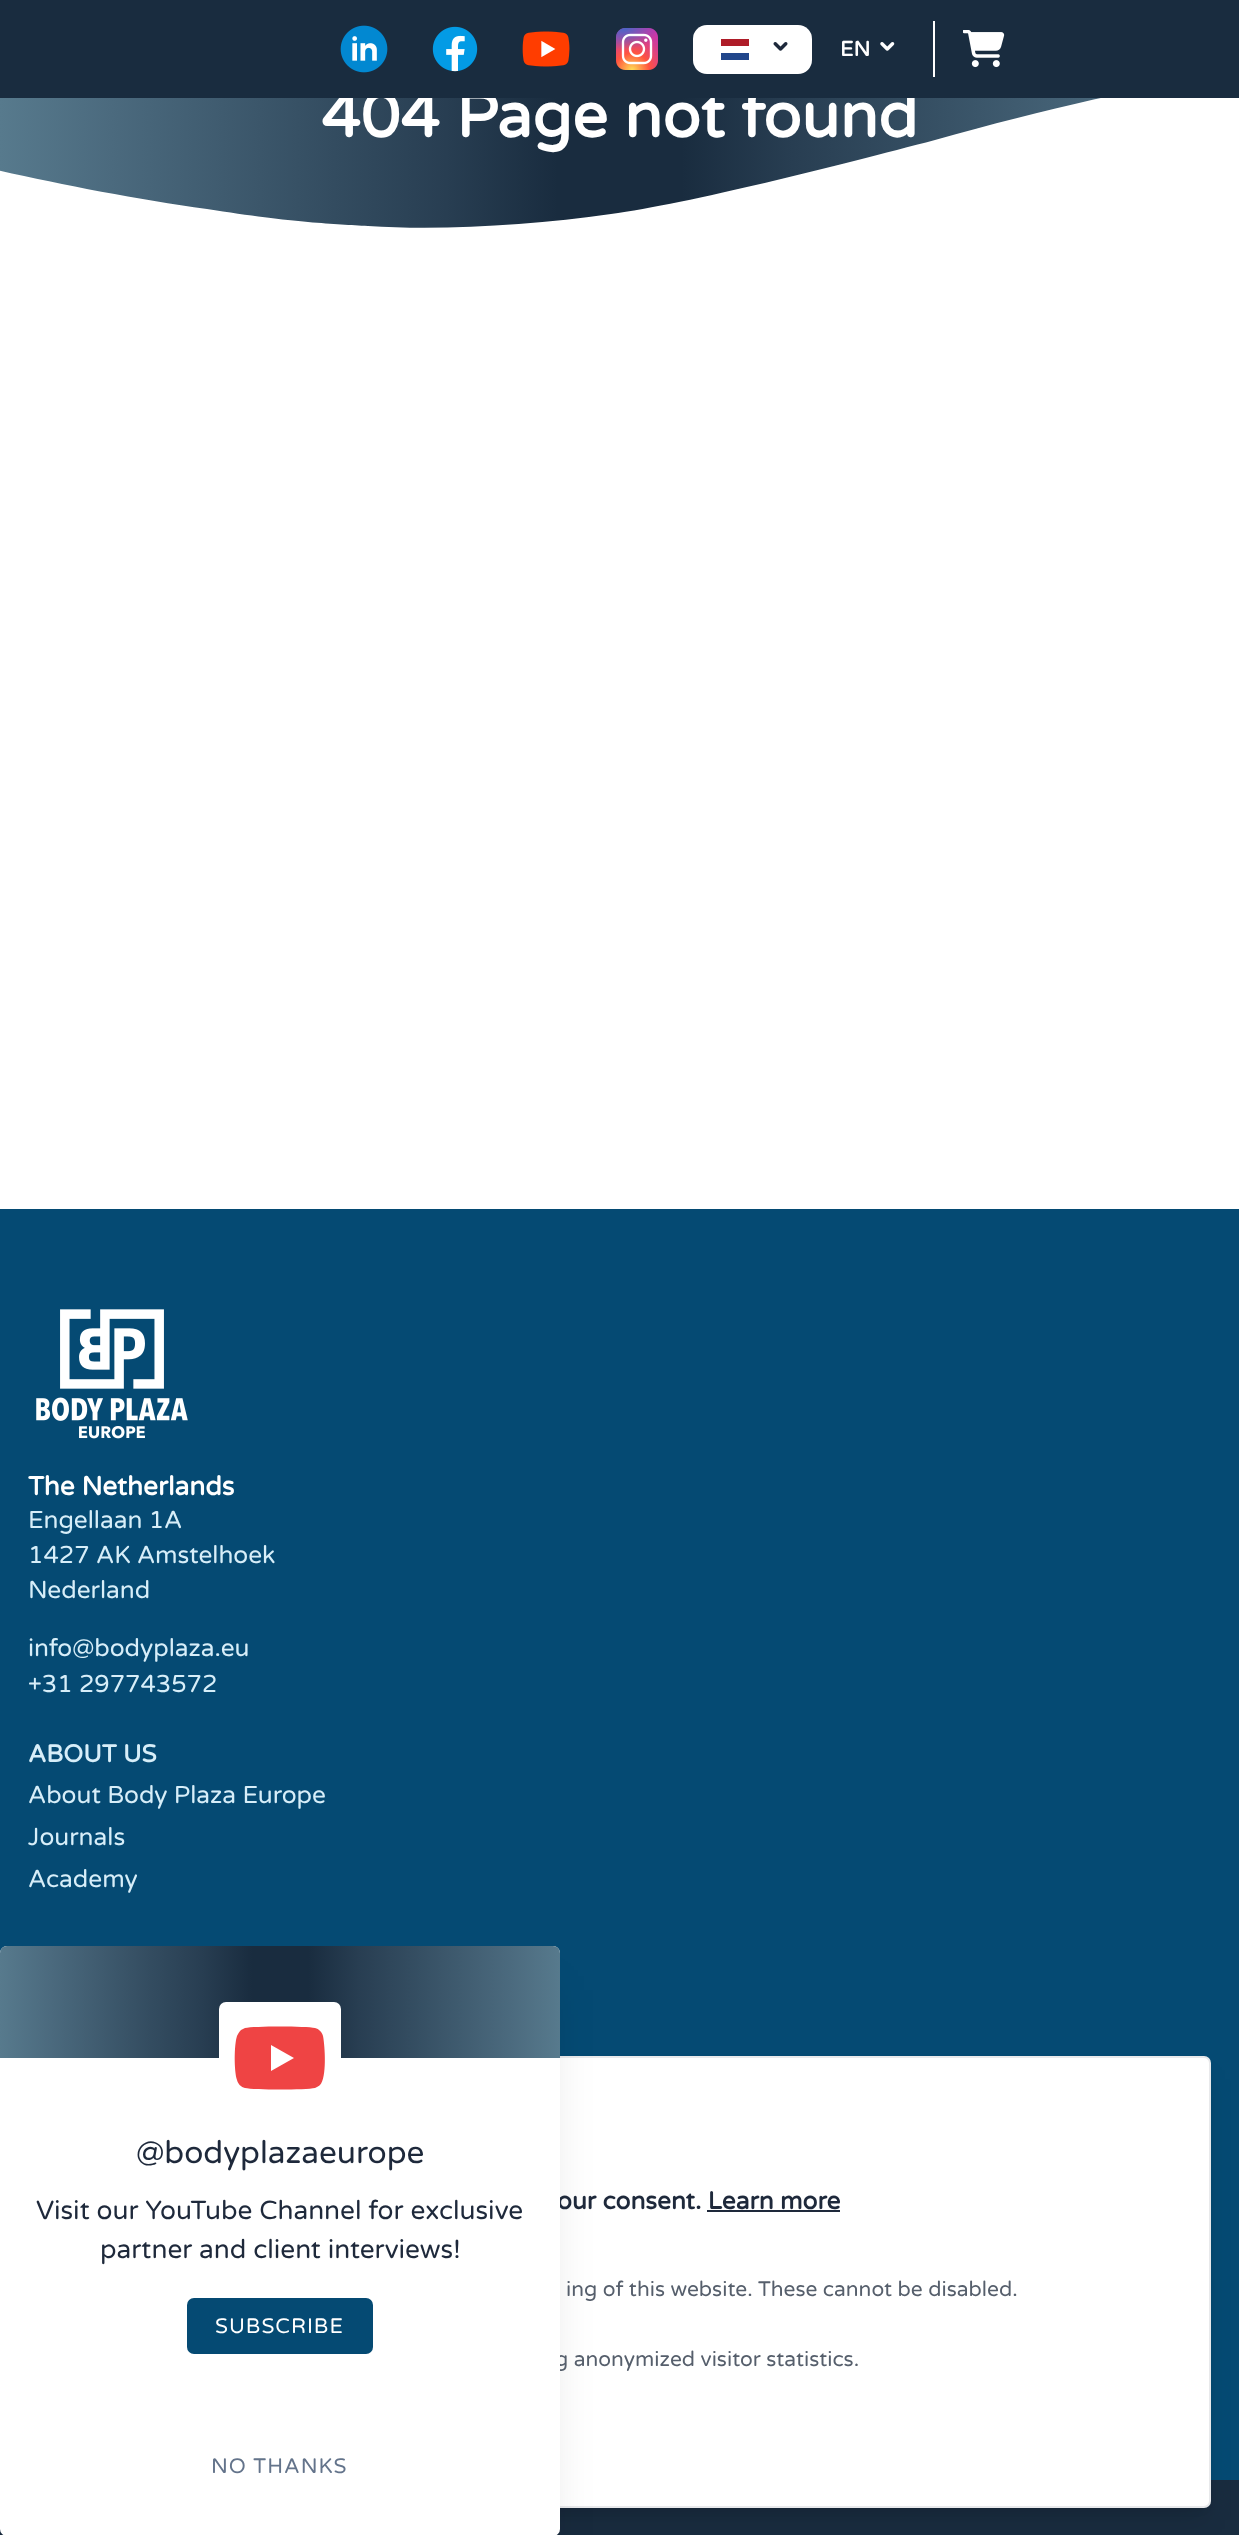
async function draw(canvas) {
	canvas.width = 1239;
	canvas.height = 2535;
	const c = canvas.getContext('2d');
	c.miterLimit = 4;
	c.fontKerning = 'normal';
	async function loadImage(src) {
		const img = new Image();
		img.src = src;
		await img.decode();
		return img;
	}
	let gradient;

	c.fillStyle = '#fff';
	c.fillRect(0, 0, 1239, 2535);
	gradient = c.createLinearGradient(0, 25, 1239, 24);
	gradient.addColorStop(0, '#577a8d');
	gradient.addColorStop(0.09, '#4b6a7e');
	gradient.addColorStop(0.18, '#3f5b6f');
	gradient.addColorStop(0.27, '#334c60');
	gradient.addColorStop(0.36, '#283e52');
	gradient.addColorStop(0.45, '#192c3f');
	gradient.addColorStop(0.55, '#192c3f');
	gradient.addColorStop(0.64, '#283e52');
	gradient.addColorStop(0.73, '#334c60');
	gradient.addColorStop(0.82, '#3f5b6f');
	gradient.addColorStop(0.91, '#4b6a7e');
	gradient.addColorStop(1, '#577a8d');
	c.fillStyle = gradient;
	c.fillRect(0, 98, 1102, 130);
	c.save();
	c.beginPath();
	c.rect(0, 28, 1239, 210);
	c.clip();
	c.fillStyle = '#fff';
	c.beginPath();
	c.moveTo(368, 226);
	c.bezierCurveTo(441, 231, 534, 225, 611, 214);
	c.bezierCurveTo(687, 204, 840, 165, 935, 140);
	c.bezierCurveTo(1179, 72, 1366, 46, 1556, 35);
	c.bezierCurveTo(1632, 31, 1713, 28, 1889, 40);
	c.bezierCurveTo(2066, 53, 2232, 94, 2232, 94);
	c.lineTo(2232, 239);
	c.lineTo(-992, 239);
	c.lineTo(-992, 176);
	c.bezierCurveTo(-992, 176, -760, 107, -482, 112);
	c.bezierCurveTo(-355, 113, -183, 126, -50, 159);
	c.bezierCurveTo(19, 176, 119, 197, 207, 209);
	c.bezierCurveTo(295, 223, 335, 224, 368, 226);
	c.closePath();
	c.fill();
	c.restore();
	c.font = 'bold 63px Varela Round';
	c.fillStyle = '#fff';
	c.fillText('404 Page not found', 321, 137);
	c.fillStyle = '#192c3f';
	c.fillRect(0, 0, 1239, 98);
	c.drawImage(await loadImage('img1.png'), 340, 25, 48, 48);
	c.drawImage(await loadImage('img2.png'), 432, 26, 46, 46);
	c.drawImage(await loadImage('img3.png'), 522, 31, 48, 36);
	c.drawImage(await loadImage('img4.png'), 616, 28, 42, 42);
	c.fillStyle = '#fff';
	c.beginPath();
	c.roundRect(693, 25, 119, 49, 14);
	c.fill();
	c.fillStyle = '#21468b';
	c.fillRect(721, 53, 28, 7);
	c.fillStyle = '#ae1c28';
	c.fillRect(721, 39, 28, 7);
	c.drawImage(await loadImage('img5.png'), 773, 42, 15, 9);
	c.font = 'bold 21px Varela Round';
	c.fillStyle = '#fff';
	c.fillText('EN', 840, 56);
	c.drawImage(await loadImage('img6.png'), 880, 42, 15, 9);
	c.fillRect(933, 21, 2, 56);
	c.drawImage(await loadImage('img7.png'), 963, 30, 42, 38);
	c.fillStyle = '#054a73';
	c.fillRect(0, 1209, 1239, 1271);
	c.drawImage(await loadImage('img8.png'), 36, 1309, 152, 130);
	c.font = 'bold 26.25px Varela Round';
	c.fillStyle = '#fff';
	c.fillText('The Netherlands', 28, 1495);
	c.font = '24.5px Varela Round';
	c.fillStyle = '#d7eef9';
	for (const [text, x, y] of [
		['Engellaan 1A', 28, 1528],
		['1427 AK Amstelhoek', 28, 1563],
		['Nederland', 28, 1598],
		['info@bodyplaza.eu', 28, 1656],
		['+31 297743572', 28, 1692],
	]) {
		c.fillText(text, x, y);
	}
	c.font = 'bold 24.5px Varela Round';
	c.fillText('ABOUT US', 28, 1762);
	c.font = '24.5px Varela Round';
	for (const [text, x, y] of [
		['About Body Plaza Europe', 28, 1803],
		['Journals', 28, 1845],
		['Academy', 28, 1887],
	]) {
		c.fillText(text, x, y);
	}
	c.fillStyle = '#192c3f';
	c.fillRect(0, 2480, 1239, 55);
	c.fillStyle = '#0000001a';
	c.filter = 'blur(5px)';
	c.beginPath();
	c.rect(35, 2070, 1169, 438);
	c.fill();
	c.filter = 'none';
	c.filter = 'blur(13px)';
	c.beginPath();
	c.roundRect(33, 2079, 1173, 441, 2);
	c.fill();
	c.filter = 'none';
	c.fillStyle = '#fff';
	c.beginPath();
	c.roundRect(28, 2056, 1183, 452, 7);
	c.fill();
	c.beginPath();
	c.roundRect(29, 2057, 1181, 450, 6);
	c.strokeStyle = '#1e293b1a';
	c.lineWidth = 2;
	c.stroke();
	c.fillStyle = '#0000001a';
	c.filter = 'blur(22px)';
	c.beginPath();
	c.rect(9, 1990, 542, 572);
	c.fill();
	c.filter = 'none';
	c.font = 'bold 24.5px Varela Round';
	c.fillStyle = '#1e293b';
	c.fillText('our consent. Learn more', 557, 2209);
	c.font = '21px Varela Round';
	c.fillStyle = '#565f6c';
	c.fillText('g anonymized visitor statistics.', 555, 2366);
	c.fillStyle = '#fff';
	c.beginPath();
	c.roundRect(0, 1946, 560, 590, 7);
	c.fill();
	gradient = c.createLinearGradient(0, 2002, 560, 2002);
	gradient.addColorStop(0, '#577a8d');
	gradient.addColorStop(0.09, '#4b6a7e');
	gradient.addColorStop(0.18, '#3f5b6f');
	gradient.addColorStop(0.27, '#334c60');
	gradient.addColorStop(0.36, '#283e52');
	gradient.addColorStop(0.45, '#192c3f');
	gradient.addColorStop(0.55, '#192c3f');
	gradient.addColorStop(0.64, '#283e52');
	gradient.addColorStop(0.73, '#334c60');
	gradient.addColorStop(0.82, '#3f5b6f');
	gradient.addColorStop(0.91, '#4b6a7e');
	gradient.addColorStop(1, '#577a8d');
	c.fillStyle = gradient;
	c.beginPath();
	c.roundRect(0, 1946, 560, 112, [7, 7, 0, 0]);
	c.fill();
	c.fillStyle = '#fff';
	c.beginPath();
	c.roundRect(219, 2002, 122, 112, 7);
	c.fill();
	c.fillStyle = '#ef4444';
	c.beginPath();
	c.moveTo(323, 2036);
	c.bezierCurveTo(322, 2032, 319, 2029, 315, 2028);
	c.bezierCurveTo(306, 2026, 254, 2026, 245, 2028);
	c.lineTo(241, 2030);
	c.bezierCurveTo(239, 2032, 238, 2034, 237, 2036);
	c.bezierCurveTo(234, 2045, 234, 2071, 237, 2080);
	c.bezierCurveTo(238, 2084, 241, 2087, 245, 2088);
	c.bezierCurveTo(254, 2090, 306, 2090, 315, 2088);
	c.bezierCurveTo(317, 2087, 319, 2086, 320, 2085);
	c.bezierCurveTo(327, 2078, 325, 2046, 323, 2036);
	c.closePath();
	c.moveTo(271, 2071);
	c.lineTo(271, 2045);
	c.lineTo(271, 2071);
	c.lineTo(271, 2045);
	c.lineTo(294, 2058);
	c.closePath();
	c.fill();
	c.font = '31.5px Varela Round';
	c.fillStyle = '#1e293b';
	c.fillText('@bodyplazaeurope', 136, 2163);
	c.font = '26.25px Varela Round';
	c.fillText('Visit our YouTube Channel for exclusive', 36, 2219);
	c.fillText('partner and client interviews!', 100, 2258);
	c.fillStyle = '#054a73';
	c.beginPath();
	c.roundRect(187, 2298, 186, 56, 7);
	c.fill();
	c.letterSpacing = '1px';
	c.font = '21px Varela Round';
	c.fillStyle = '#fff';
	c.fillText('SUBSCRIBE', 215, 2333);
	c.fillStyle = '#64748b';
	c.fillText('NO THANKS', 211, 2473);
	c.fillStyle = '#1e293b';
	c.fillRect(707, 2210, 133, 2);
	c.letterSpacing = '0px';
	c.fillStyle = '#565f6c';
	c.fillText('ing of this website. These cannot be disabled.', 566, 2296);
}

draw(document.querySelector('canvas'));
